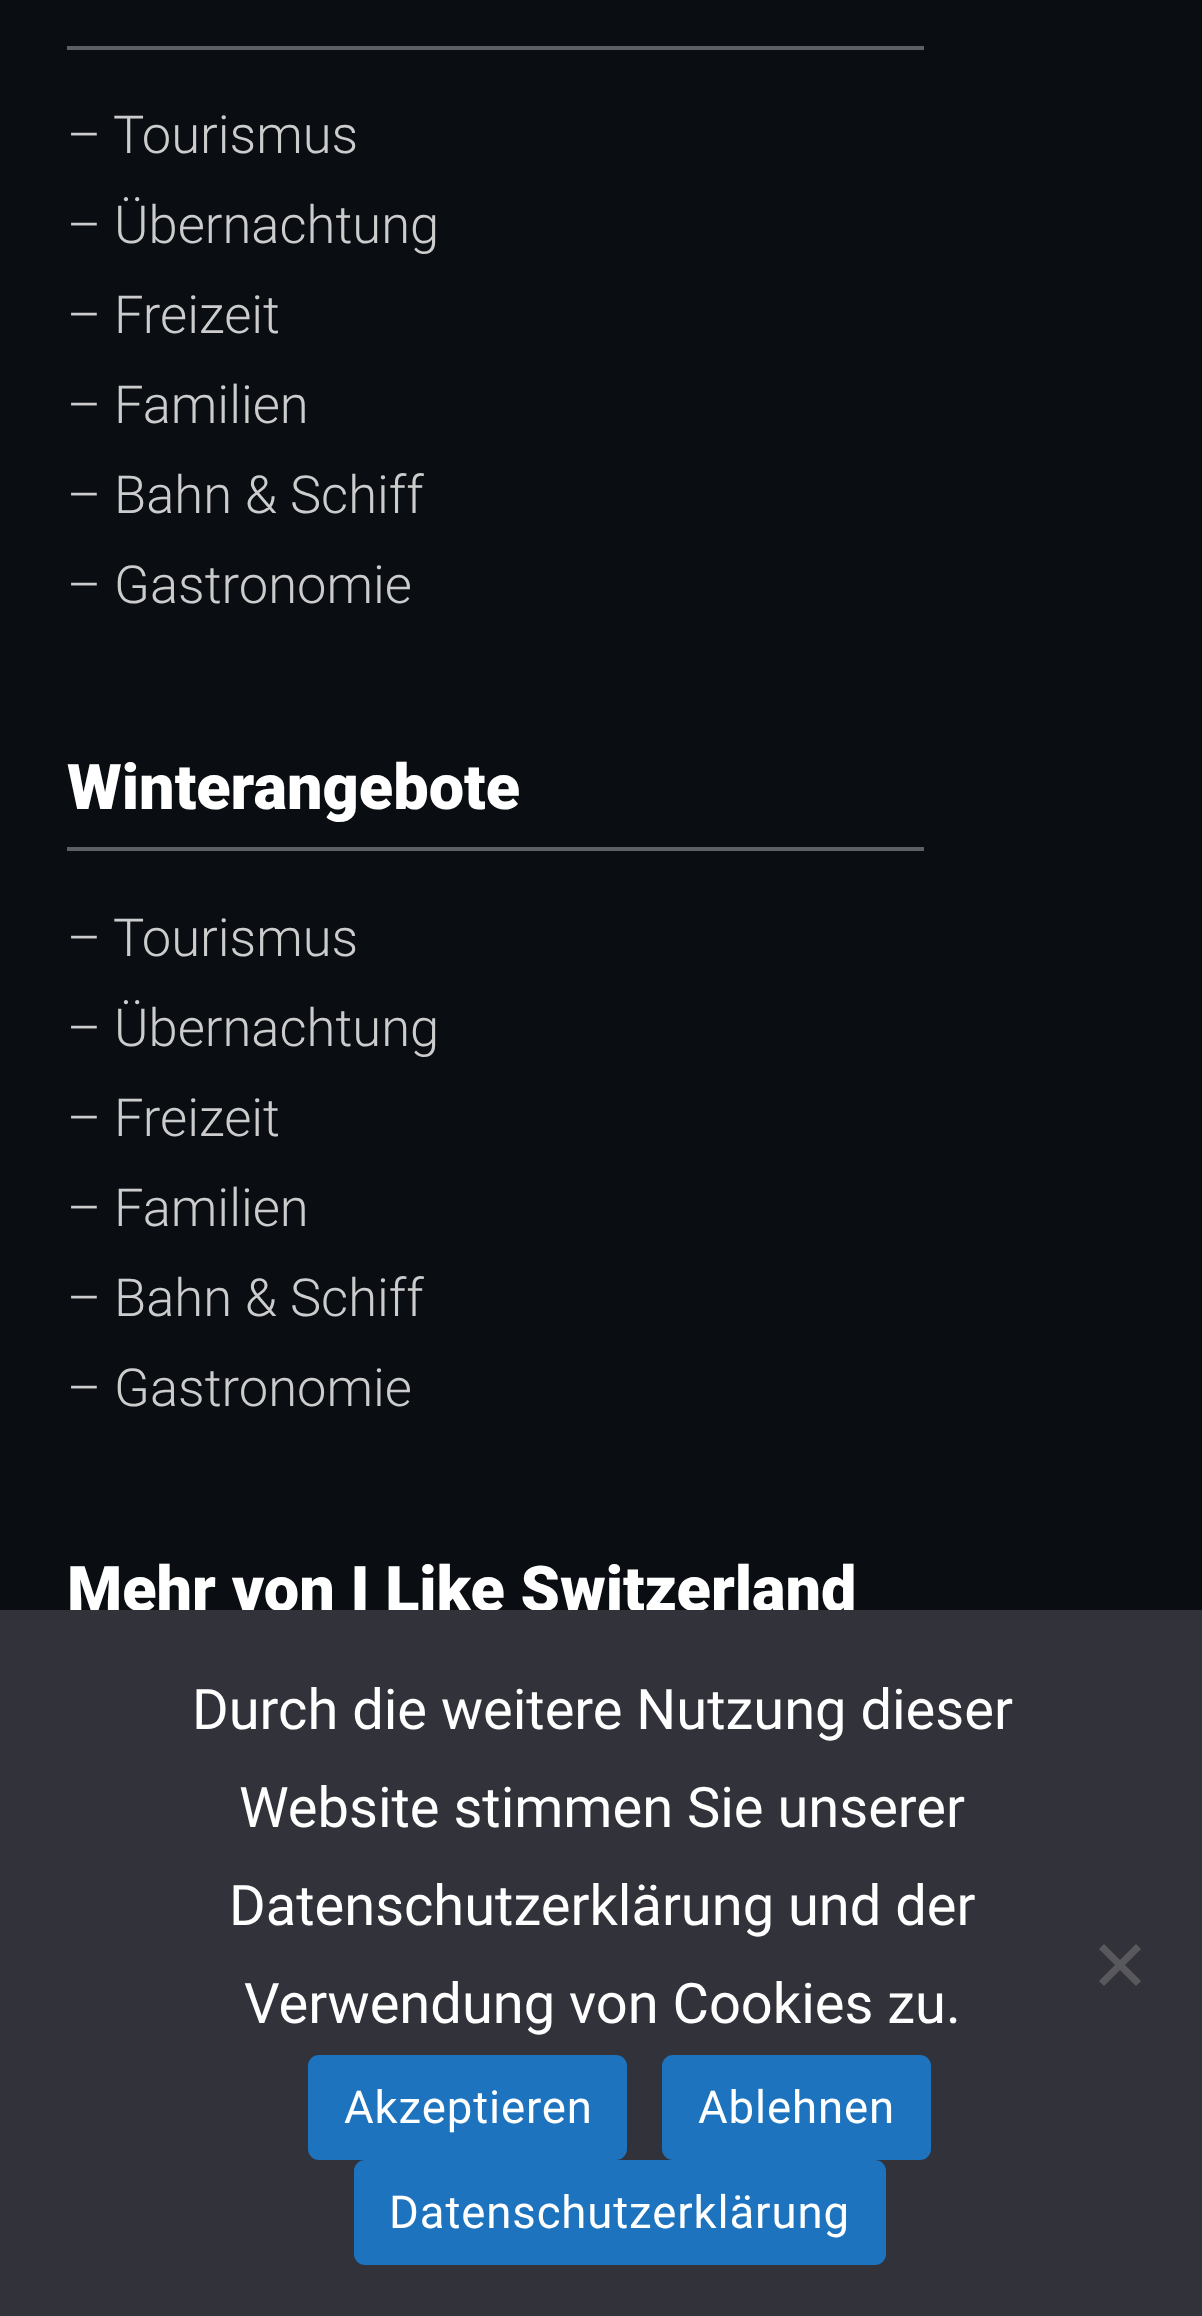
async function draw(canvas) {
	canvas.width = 1202;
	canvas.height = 2316;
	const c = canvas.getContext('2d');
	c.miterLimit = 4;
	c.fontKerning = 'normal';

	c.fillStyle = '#0a0e13';
	c.fillRect(0, 0, 1202, 2316);
	c.fillStyle = '#5d6063';
	c.fillRect(67, 46, 857, 4);
	c.font = '300 52.5px Roboto';
	c.fillStyle = '#cccccd';
	for (const [text, x, y] of [
		['– Tourismus', 67, 153],
		['– Übernachtung', 67, 243],
		['– Freizeit', 67, 333],
		['– Familien', 67, 423],
		['– Bahn & Schiff', 67, 513],
		['– Gastronomie', 67, 603],
	]) {
		c.fillText(text, x, y);
	}
	c.font = '900 63px Roboto';
	c.fillStyle = '#fff';
	c.fillText('Winterangebote', 67, 809);
	c.fillStyle = '#5d6063';
	c.fillRect(67, 847, 857, 4);
	c.font = '300 52.5px Roboto';
	c.fillStyle = '#cccccd';
	for (const [text, x, y] of [
		['– Tourismus', 67, 956],
		['– Übernachtung', 67, 1046],
		['– Freizeit', 67, 1136],
		['– Familien', 67, 1226],
		['– Bahn & Schiff', 67, 1316],
		['– Gastronomie', 67, 1406],
	]) {
		c.fillText(text, x, y);
	}
	c.font = '900 63px Roboto';
	c.fillStyle = '#fff';
	c.fillText('Mehr von I Like Switzerland', 67, 1611);
	c.fillStyle = '#32323a';
	c.fillRect(0, 1610, 1202, 706);
	c.font = '56px Roboto';
	c.fillStyle = '#fff';
	for (const [text, x, y] of [
		['Durch die weitere Nutzung dieser', 192, 1729],
		['Website stimmen Sie unserer', 239, 1827],
		['Datenschutzerklärung und der', 229, 1925],
		['Verwendung von Cookies zu.', 244, 2023],
	]) {
		c.fillText(text, x, y);
	}
	c.fillStyle = '#59595d';
	c.beginPath();
	c.moveTo(1136, 1944);
	c.lineTo(1141, 1949);
	c.lineTo(1104, 1986);
	c.lineTo(1099, 1981);
	c.closePath();
	c.fill();
	c.beginPath();
	c.moveTo(1099, 1949);
	c.lineTo(1104, 1944);
	c.lineTo(1141, 1981);
	c.lineTo(1136, 1986);
	c.closePath();
	c.fill();
	c.fillStyle = '#1e73be';
	c.beginPath();
	c.roundRect(308, 2055, 319, 105, 11);
	c.fill();
	c.letterSpacing = '0.9px';
	c.font = '45.5px Roboto';
	c.fillStyle = '#fff';
	c.fillText('Akzeptieren', 344, 2123);
	c.fillStyle = '#1e73be';
	c.beginPath();
	c.roundRect(662, 2055, 269, 105, 11);
	c.fill();
	c.fillStyle = '#fff';
	c.fillText('Ablehnen', 698, 2123);
	c.fillStyle = '#1e73be';
	c.beginPath();
	c.roundRect(354, 2160, 532, 105, 11);
	c.fill();
	c.fillStyle = '#fff';
	c.fillText('Datenschutzerklärung', 389, 2228);
}

draw(document.querySelector('canvas'));
